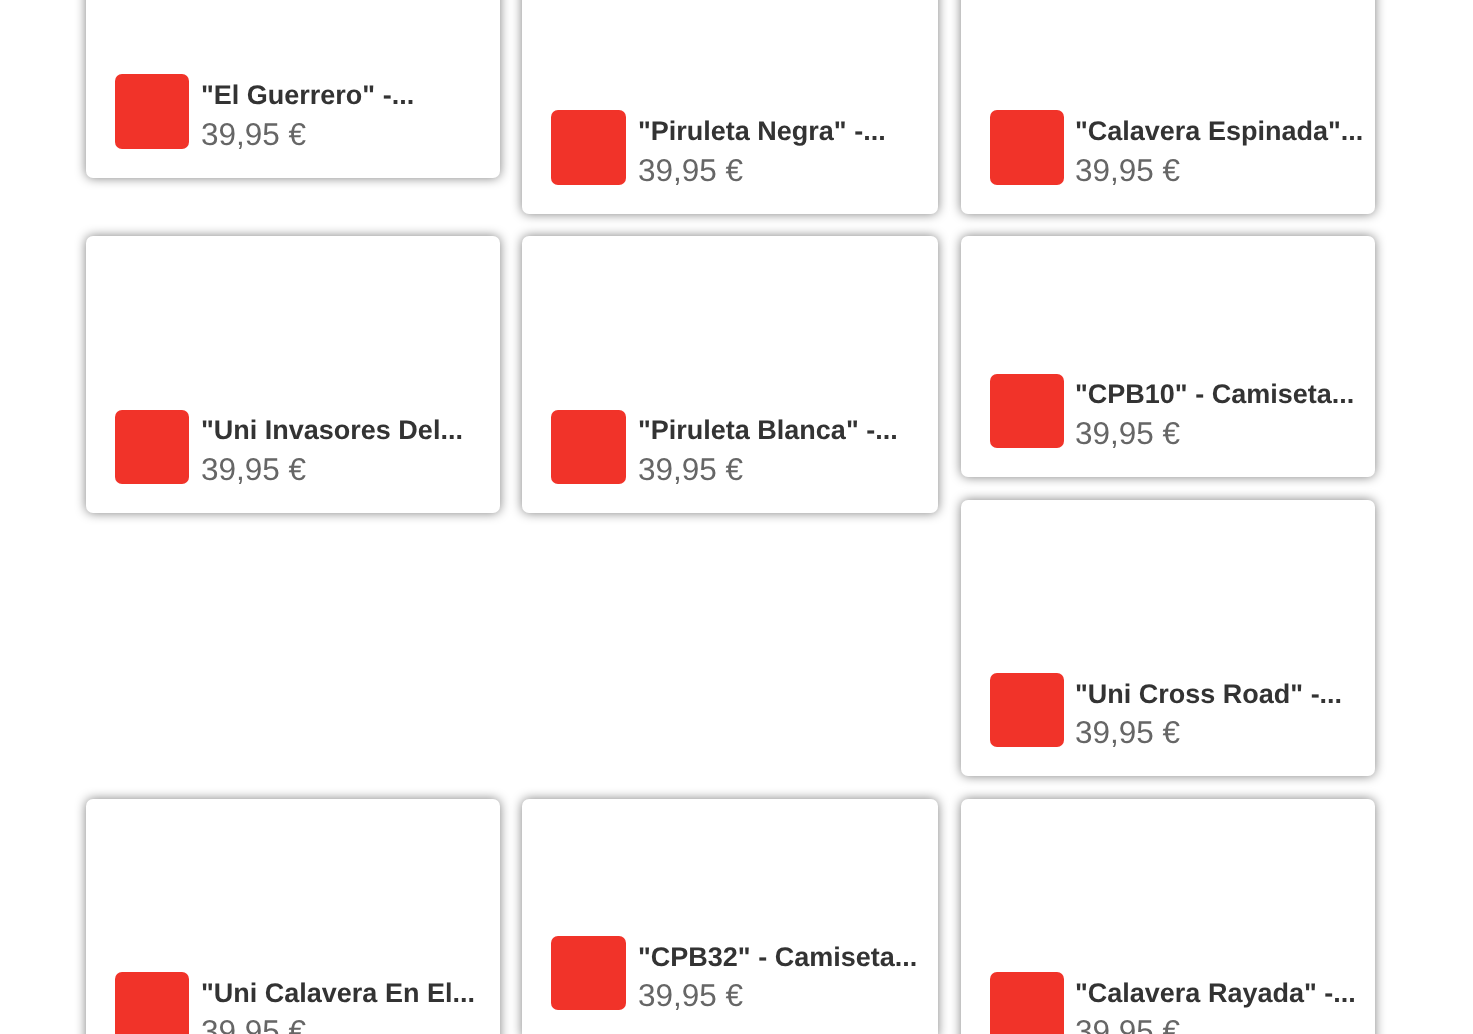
async function draw(canvas) {
	canvas.width = 1473;
	canvas.height = 1034;
	const c = canvas.getContext('2d');
	c.miterLimit = 4;
	c.fontKerning = 'normal';

	c.fillStyle = '#fff';
	c.fillRect(0, 0, 1473, 1034);
	c.fillStyle = '#00000080';
	c.filter = 'blur(5.5px)';
	c.beginPath();
	c.roundRect(86, -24, 414, 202, 7);
	c.fill();
	c.filter = 'none';
	c.fillStyle = '#fff';
	c.beginPath();
	c.roundRect(86, -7, 414, 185, 7);
	c.fill();
	c.fillStyle = '#f13329';
	c.beginPath();
	c.roundRect(115, 74, 74, 75, 7);
	c.fill();
	c.font = 'bold 27px Liberation Sans';
	c.fillStyle = '#333';
	c.fillText('"El Guerrero" -...', 201, 104);
	c.font = '31.5px Liberation Sans';
	c.fillStyle = '#666';
	c.fillText('39,95 €', 201, 145);
	c.fillStyle = '#00000080';
	c.filter = 'blur(5.5px)';
	c.beginPath();
	c.roundRect(522, -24, 416, 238, 7);
	c.fill();
	c.filter = 'none';
	c.fillStyle = '#fff';
	c.beginPath();
	c.roundRect(522, -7, 416, 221, 7);
	c.fill();
	c.fillStyle = '#f13329';
	c.beginPath();
	c.roundRect(551, 110, 75, 75, 7);
	c.fill();
	c.font = 'bold 27px Liberation Sans';
	c.fillStyle = '#333';
	c.fillText('"Piruleta Negra" -...', 638, 140);
	c.font = '31.5px Liberation Sans';
	c.fillStyle = '#666';
	c.fillText('39,95 €', 638, 181);
	c.fillStyle = '#00000080';
	c.filter = 'blur(5.5px)';
	c.beginPath();
	c.roundRect(961, -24, 414, 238, 7);
	c.fill();
	c.filter = 'none';
	c.fillStyle = '#fff';
	c.beginPath();
	c.roundRect(961, -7, 414, 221, 7);
	c.fill();
	c.fillStyle = '#f13329';
	c.beginPath();
	c.roundRect(990, 110, 74, 75, 7);
	c.fill();
	c.font = 'bold 27px Liberation Sans';
	c.fillStyle = '#333';
	c.fillText('"Calavera Espinada"...', 1075, 140);
	c.font = '31.5px Liberation Sans';
	c.fillStyle = '#666';
	c.fillText('39,95 €', 1075, 181);
	c.fillStyle = '#00000080';
	c.filter = 'blur(5.5px)';
	c.beginPath();
	c.roundRect(86, 236, 414, 277, 7);
	c.fill();
	c.filter = 'none';
	c.fillStyle = '#fff';
	c.beginPath();
	c.roundRect(86, 236, 414, 277, 7);
	c.fill();
	c.fillStyle = '#f13329';
	c.beginPath();
	c.roundRect(115, 410, 74, 74, 7);
	c.fill();
	c.font = 'bold 27px Liberation Sans';
	c.fillStyle = '#333';
	c.fillText('"Uni Invasores Del...', 201, 439);
	c.font = '31.5px Liberation Sans';
	c.fillStyle = '#666';
	c.fillText('39,95 €', 201, 480);
	c.fillStyle = '#00000080';
	c.filter = 'blur(5.5px)';
	c.beginPath();
	c.roundRect(522, 236, 416, 277, 7);
	c.fill();
	c.filter = 'none';
	c.fillStyle = '#fff';
	c.beginPath();
	c.roundRect(522, 236, 416, 277, 7);
	c.fill();
	c.fillStyle = '#f13329';
	c.beginPath();
	c.roundRect(551, 410, 75, 74, 7);
	c.fill();
	c.font = 'bold 27px Liberation Sans';
	c.fillStyle = '#333';
	c.fillText('"Piruleta Blanca" -...', 638, 439);
	c.font = '31.5px Liberation Sans';
	c.fillStyle = '#666';
	c.fillText('39,95 €', 638, 480);
	c.fillStyle = '#00000080';
	c.filter = 'blur(5.5px)';
	c.beginPath();
	c.roundRect(961, 236, 414, 241, 7);
	c.fill();
	c.filter = 'none';
	c.fillStyle = '#fff';
	c.beginPath();
	c.roundRect(961, 236, 414, 241, 7);
	c.fill();
	c.fillStyle = '#f13329';
	c.beginPath();
	c.roundRect(990, 374, 74, 74, 7);
	c.fill();
	c.font = 'bold 27px Liberation Sans';
	c.fillStyle = '#333';
	c.fillText('"CPB10" - Camiseta...', 1075, 403);
	c.font = '31.5px Liberation Sans';
	c.fillStyle = '#666';
	c.fillText('39,95 €', 1075, 444);
	c.fillStyle = '#00000080';
	c.filter = 'blur(5.5px)';
	c.beginPath();
	c.roundRect(961, 500, 414, 276, 7);
	c.fill();
	c.filter = 'none';
	c.fillStyle = '#fff';
	c.beginPath();
	c.roundRect(961, 500, 414, 276, 7);
	c.fill();
	c.fillStyle = '#f13329';
	c.beginPath();
	c.roundRect(990, 673, 74, 74, 7);
	c.fill();
	c.font = 'bold 27px Liberation Sans';
	c.fillStyle = '#333';
	c.fillText('"Uni Cross Road" -...', 1075, 703);
	c.font = '31.5px Liberation Sans';
	c.fillStyle = '#666';
	c.fillText('39,95 €', 1075, 743);
	c.fillStyle = '#00000080';
	c.filter = 'blur(5.5px)';
	c.beginPath();
	c.roundRect(86, 799, 414, 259, 7);
	c.fill();
	c.filter = 'none';
	c.fillStyle = '#fff';
	c.beginPath();
	c.roundRect(86, 799, 414, 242, 7);
	c.fill();
	c.fillStyle = '#f13329';
	c.beginPath();
	c.roundRect(115, 972, 74, 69, 7);
	c.fill();
	c.font = 'bold 27px Liberation Sans';
	c.fillStyle = '#333';
	c.fillText('"Uni Calavera En El...', 201, 1002);
	c.font = '31.5px Liberation Sans';
	c.fillStyle = '#666';
	c.fillText('39,95 €', 201, 1042);
	c.fillStyle = '#00000080';
	c.filter = 'blur(5.5px)';
	c.beginPath();
	c.roundRect(522, 799, 416, 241, 7);
	c.fill();
	c.filter = 'none';
	c.fillStyle = '#fff';
	c.beginPath();
	c.roundRect(522, 799, 416, 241, 7);
	c.fill();
	c.fillStyle = '#f13329';
	c.beginPath();
	c.roundRect(551, 936, 75, 74, 7);
	c.fill();
	c.font = 'bold 27px Liberation Sans';
	c.fillStyle = '#333';
	c.fillText('"CPB32" - Camiseta...', 638, 966);
	c.font = '31.5px Liberation Sans';
	c.fillStyle = '#666';
	c.fillText('39,95 €', 638, 1006);
	c.fillStyle = '#00000080';
	c.filter = 'blur(5.5px)';
	c.beginPath();
	c.roundRect(961, 799, 414, 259, 7);
	c.fill();
	c.filter = 'none';
	c.fillStyle = '#fff';
	c.beginPath();
	c.roundRect(961, 799, 414, 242, 7);
	c.fill();
	c.fillStyle = '#f13329';
	c.beginPath();
	c.roundRect(990, 972, 74, 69, 7);
	c.fill();
	c.font = 'bold 27px Liberation Sans';
	c.fillStyle = '#333';
	c.fillText('"Calavera Rayada" -...', 1075, 1002);
	c.font = '31.5px Liberation Sans';
	c.fillStyle = '#666';
	c.fillText('39,95 €', 1075, 1042);
}

draw(document.querySelector('canvas'));
